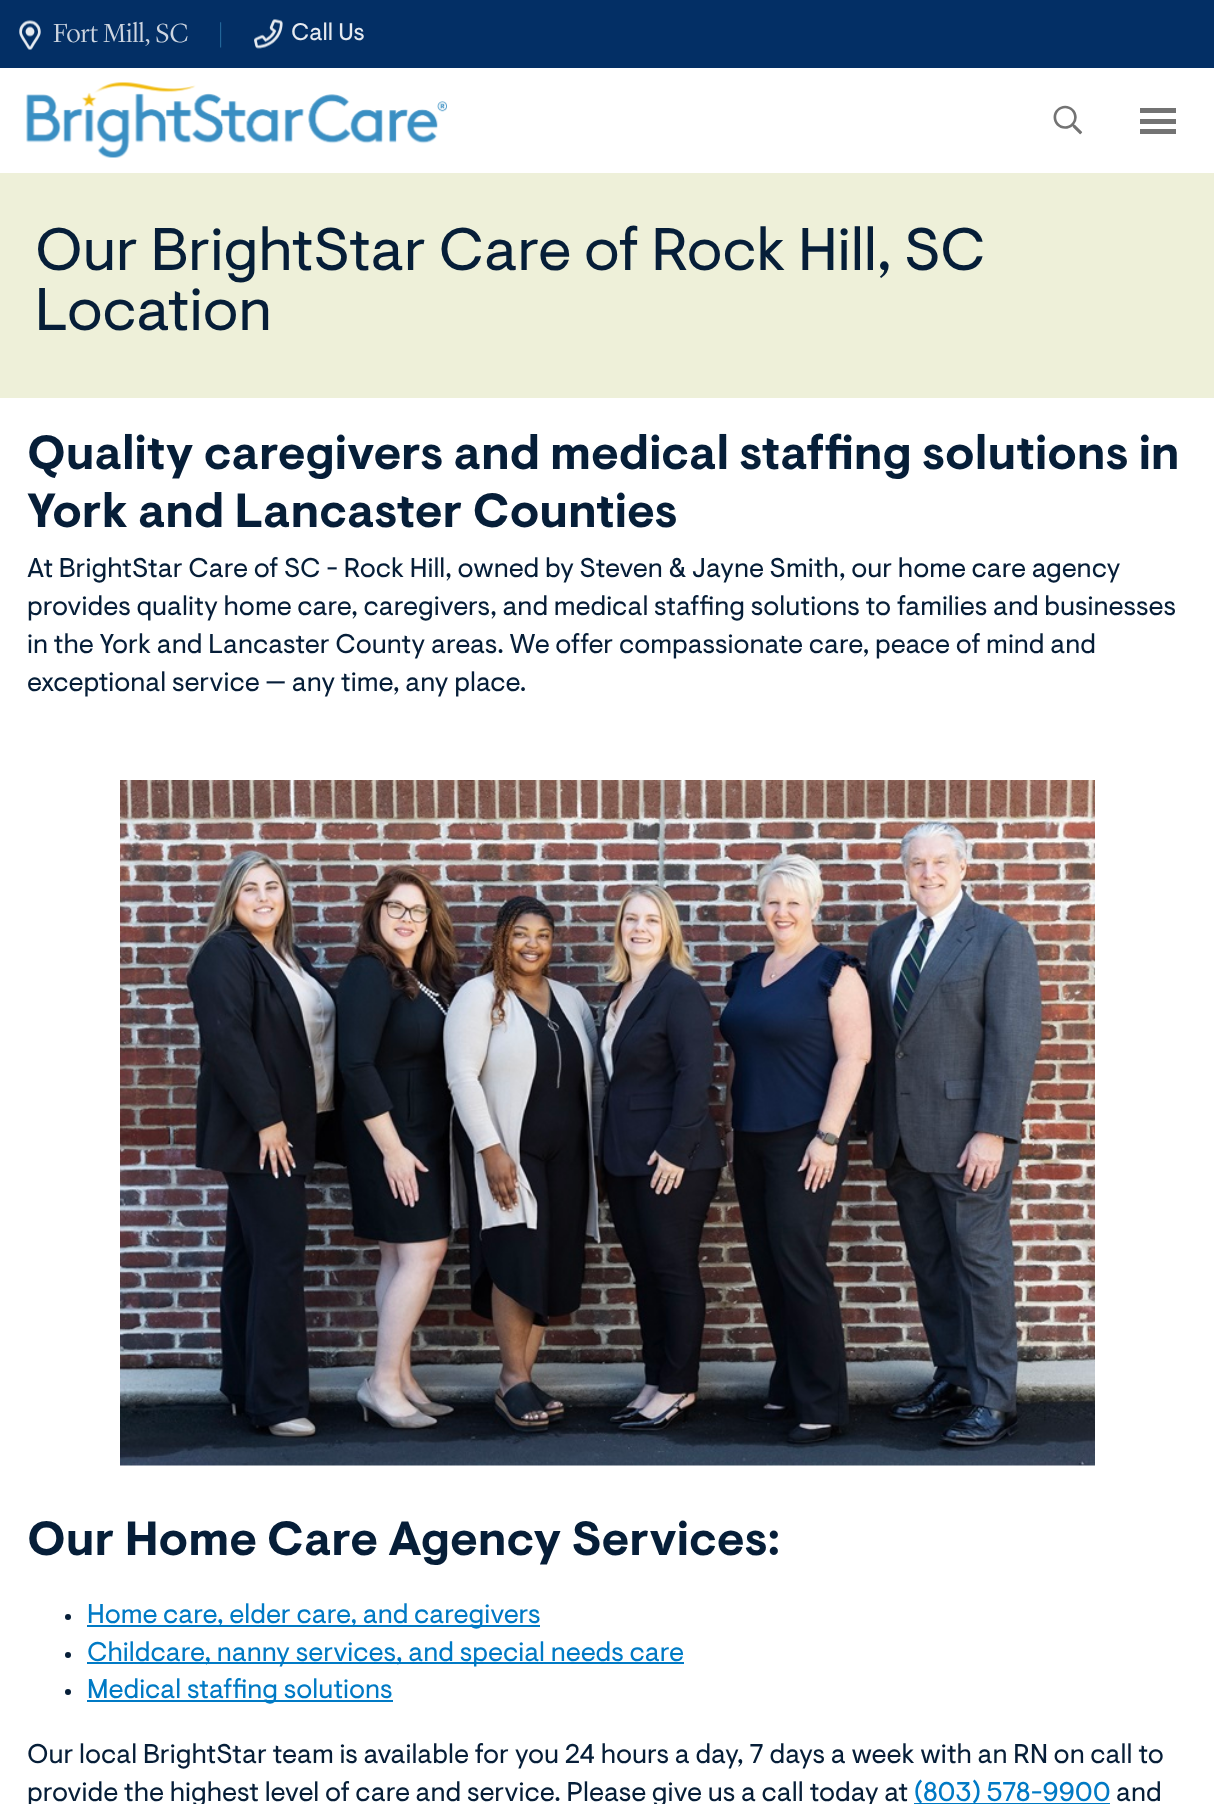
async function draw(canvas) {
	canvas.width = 1214;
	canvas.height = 1804;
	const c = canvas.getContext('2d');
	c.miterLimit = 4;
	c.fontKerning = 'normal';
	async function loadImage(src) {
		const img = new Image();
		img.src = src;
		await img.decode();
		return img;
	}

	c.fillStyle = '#fff';
	c.fillRect(0, 0, 1214, 1804);
	c.fillStyle = '#032f65';
	c.fillRect(0, 0, 1214, 68);
	c.drawImage(await loadImage('img1.png'), 19, 20, 22, 30);
	c.font = '300 27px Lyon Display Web';
	c.fillStyle = '#cdd5e0';
	c.fillText('Fort Mill, SC', 53, 42);
	c.fillStyle = '#307caf';
	c.fillText('|', 218, 42);
	c.drawImage(await loadImage('img2.png'), 254, 19, 29, 30);
	c.font = '24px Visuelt';
	c.fillStyle = '#e6eaf0';
	c.fillText('Call Us', 291, 40);
	c.drawImage(await loadImage('img3.png'), 26, 82, 421, 76);
	c.drawImage(await loadImage('img4.png'), 1053, 105, 30, 30);
	for (const [x, y, w, h, color] of [
		[1140, 119, 36, 5, '#737373'],
		[1140, 108, 36, 5, '#737373'],
		[1140, 129, 36, 5, '#737373'],
		[0, 173, 1214, 225, '#eef0d9'],
	]) {
		c.fillStyle = color;
		c.fillRect(x, y, w, h);
	}
	c.font = '60px Visuelt';
	c.fillStyle = '#061e38';
	c.fillText('Our BrightStar Care of Rock Hill, SC', 35, 270);
	c.fillText('Location', 35, 330);
	c.font = 'bold 48px Visuelt';
	c.fillText('Quality caregivers and medical staffing solutions in', 27, 469);
	c.fillText('York and Lancaster Counties', 27, 527);
	c.font = '27px Visuelt';
	for (const [text, x, y] of [
		['At BrightStar Care of SC - Rock Hill, owned by Steven & Jayne Smith, our home care agency', 27, 577],
		['provides quality home care, caregivers, and medical staffing solutions to families and businesses', 27, 615],
		['in the York and Lancaster County areas. We offer compassionate care, peace of mind and', 27, 653],
		['exceptional service — any time, any place.', 27, 691],
	]) {
		c.fillText(text, x, y);
	}
	c.drawImage(await loadImage('img5.png'), 120, 780, 975, 686);
	c.font = 'bold 48px Visuelt';
	c.fillText('Our Home Care Agency Services:', 27, 1555);
	c.beginPath();
	c.arc(68, 1617, 3, 0, 2 * Math.PI);
	c.fill();
	c.fillStyle = '#007ac5';
	c.fillRect(87, 1625, 453, 2);
	c.font = '27px Visuelt';
	c.fillText('Home care, elder care, and caregivers', 87, 1623);
	c.fillStyle = '#061e38';
	c.beginPath();
	c.arc(68, 1655, 3, 0, 2 * Math.PI);
	c.fill();
	c.fillStyle = '#007ac5';
	c.fillRect(87, 1662, 597, 2);
	c.fillText('Childcare, nanny services, and special needs care', 87, 1661);
	c.fillStyle = '#061e38';
	c.beginPath();
	c.arc(68, 1692, 3, 0, 2 * Math.PI);
	c.fill();
	c.fillStyle = '#007ac5';
	c.fillRect(87, 1700, 306, 2);
	c.fillText('Medical staffing solutions', 87, 1698);
	c.fillStyle = '#061e38';
	c.fillText('Our local BrightStar team is available for you 24 hours a day, 7 days a week with an RN on call to', 27, 1763);
	c.fillText('provide the highest level of care and service. Please give us a call today at', 27, 1801);
	c.fillStyle = '#007ac5';
	c.fillRect(914, 1803, 196, 1);
	c.fillText('(803) 578-9900', 914, 1801);
	c.fillStyle = '#061e38';
	c.fillText('and', 1116, 1801);
}

draw(document.querySelector('canvas'));
